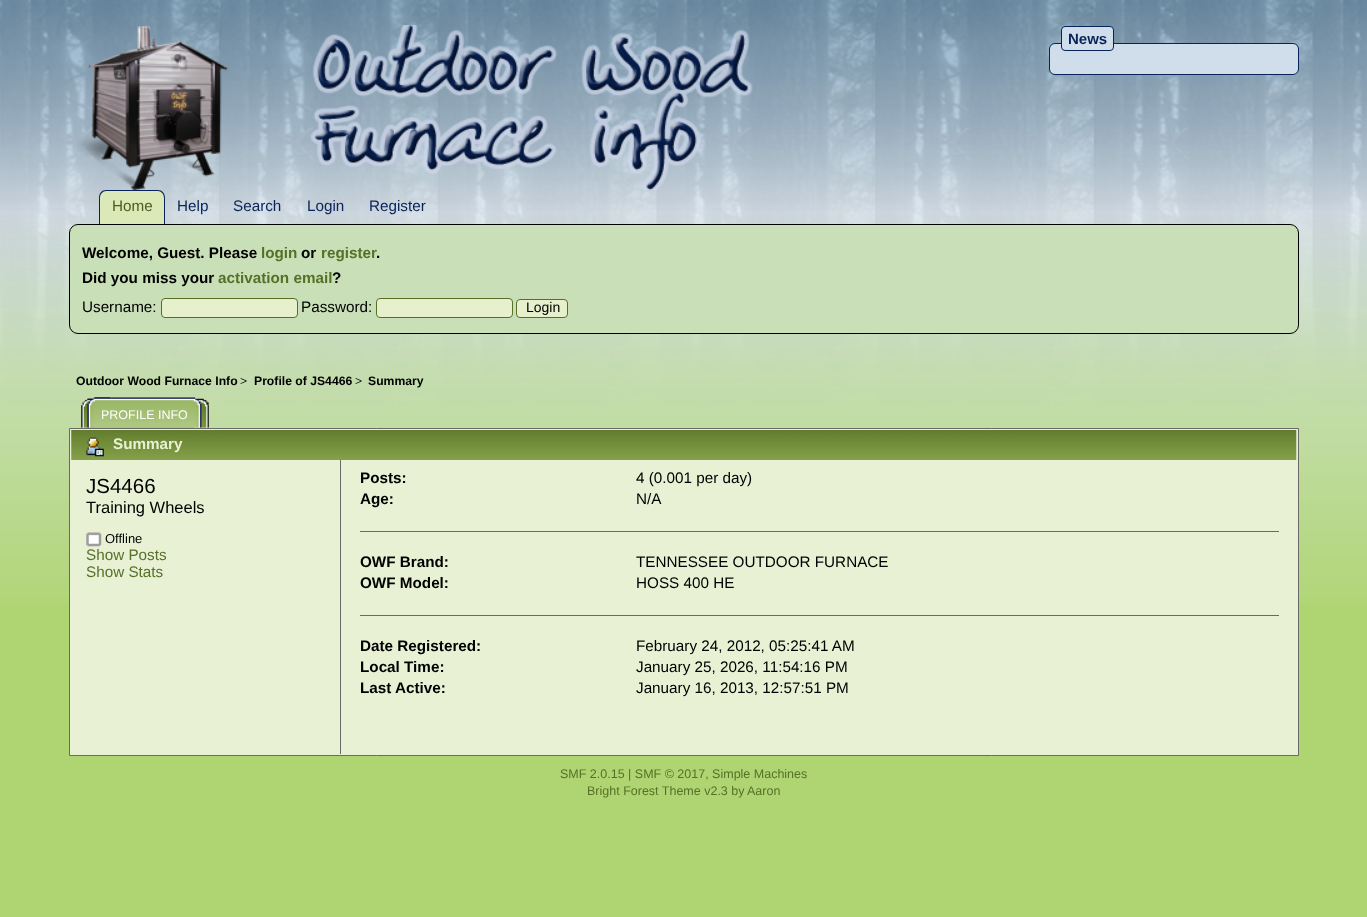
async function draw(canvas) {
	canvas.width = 1367;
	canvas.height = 917;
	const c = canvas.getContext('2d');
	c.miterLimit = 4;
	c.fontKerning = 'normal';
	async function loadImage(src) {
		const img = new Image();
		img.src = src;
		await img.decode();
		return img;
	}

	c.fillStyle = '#afd572';
	c.fillRect(0, 0, 1367, 917);
	c.drawImage(await loadImage('img1.png'), 0, 0, 1367, 605);
	c.drawImage(await loadImage('img2.png'), 77, 25, 676, 165);
	c.fillStyle = '#d0deeb';
	c.beginPath();
	c.roundRect(1049.5, 43.5, 249, 31, 5.5);
	c.fill();
	c.strokeStyle = '#07235a';
	c.stroke();
	c.beginPath();
	c.roundRect(1061.5, 26.5, 52, 24, 3.5);
	c.fill();
	c.stroke();
	c.font = 'bold 15px Liberation Sans';
	c.fillStyle = '#07235a';
	c.fillText('News', 1068, 44);
	c.fillStyle = '#dbe8b8';
	c.beginPath();
	c.roundRect(99, 190, 66, 35, [8, 8, 0, 0]);
	c.fill();
	c.fillStyle = '#07235a';
	c.beginPath();
	c.moveTo(106, 190);
	c.lineTo(158, 190);
	c.bezierCurveTo(162, 190, 165, 193, 165, 198);
	c.lineTo(165, 225);
	c.lineTo(99, 225);
	c.lineTo(99, 198);
	c.bezierCurveTo(99, 193, 102, 190, 106, 190);
	c.closePath();
	c.moveTo(106, 191);
	c.lineTo(158, 191);
	c.bezierCurveTo(161, 191, 164, 194, 164, 198);
	c.lineTo(164, 225);
	c.lineTo(100, 225);
	c.lineTo(100, 198);
	c.bezierCurveTo(100, 194, 103, 191, 106, 191);
	c.closePath();
	c.fill('evenodd');
	c.font = '15.25px Liberation Sans';
	c.fillStyle = '#495e20';
	c.fillText('Home', 112, 211);
	c.fillStyle = '#07235a';
	for (const [text, x, y] of [
		['Help', 177, 211],
		['Search', 233, 211],
		['Login', 307, 211],
		['Register', 369, 211],
	]) {
		c.fillText(text, x, y);
	}
	c.fillStyle = '#c9dfb8';
	c.beginPath();
	c.roundRect(69.5, 224.5, 1229, 109, 8.5);
	c.fill();
	c.strokeStyle = '#000';
	c.stroke();
	c.font = 'bold 15.25px Liberation Sans';
	c.fillStyle = '#000';
	c.fillText('Welcome, Guest. Please', 82, 258);
	c.fillStyle = '#577028';
	c.fillText('login', 261, 258);
	c.fillStyle = '#000';
	c.fillText('or', 301, 258);
	c.fillStyle = '#577028';
	c.fillText('register', 321, 258);
	c.fillStyle = '#000';
	c.fillText('.', 376, 258);
	c.fillText('Did you miss your', 82, 283);
	c.fillStyle = '#577028';
	c.fillText('activation email', 218, 283);
	c.fillStyle = '#000';
	c.fillText('?', 332, 283);
	c.font = '15.25px Liberation Sans';
	c.fillText('Username:', 82, 312);
	c.fillStyle = '#e6f0cc';
	c.beginPath();
	c.roundRect(161.5, 298.5, 136, 19, 3.5);
	c.fill();
	c.strokeStyle = '#577028';
	c.stroke();
	c.fillStyle = '#000';
	c.fillText('Password:', 301, 312);
	c.fillStyle = '#e6f0cc';
	c.beginPath();
	c.roundRect(376.5, 298.5, 136, 19, 3.5);
	c.fill();
	c.stroke();
	c.beginPath();
	c.roundRect(516.5, 299.5, 51, 18, 3.5);
	c.fill();
	c.stroke();
	c.font = '14px Liberation Sans';
	c.fillStyle = '#000';
	c.fillText('Login', 526, 312);
	c.font = 'bold 12.2px Liberation Sans';
	c.fillText('Outdoor Wood Furnace Info', 76, 385);
	c.font = '12.2px Liberation Sans';
	c.fillText('>', 240, 385);
	c.font = 'bold 12.2px Liberation Sans';
	c.fillText('Profile of JS4466', 254, 385);
	c.font = '12.2px Liberation Sans';
	c.fillText('>', 355, 385);
	c.font = 'bold 12.2px Liberation Sans';
	c.fillText('Summary', 368, 385);
	c.drawImage(await loadImage('img3.png'), 81, 398, 113, 30);
	c.drawImage(await loadImage('img4.png'), 87, 397, 23, 31);
	c.drawImage(await loadImage('img5.png'), 95, 397, 114, 31);
	c.font = '12.5px Liberation Sans';
	c.fillStyle = '#fff';
	c.fillText('PROFILE INFO', 101, 419);
	c.fillStyle = '#e9f1d5';
	c.beginPath();
	c.rect(69.5, 428.5, 1229, 327);
	c.fill();
	c.strokeStyle = '#696969';
	c.stroke();
	c.drawImage(await loadImage('img6.png'), 71, 430, 1226, 30);
	c.drawImage(await loadImage('img7.png'), 86, 437, 18, 20);
	c.font = 'bold 15.25px Liberation Sans';
	c.fillText('Summary', 113, 449);
	c.font = '20.5px Liberation Sans';
	c.fillStyle = '#000';
	c.fillText('JS4466', 86, 493);
	c.font = '16.5px Liberation Sans';
	c.fillText('Training Wheels', 86, 513);
	c.drawImage(await loadImage('img8.png'), 86, 532, 16, 15);
	c.font = '13px Liberation Sans';
	c.fillText('Offline', 105, 543);
	c.font = '15.25px Liberation Sans';
	c.fillStyle = '#577028';
	c.fillText('Show Posts', 86, 560);
	c.fillText('Show Stats', 86, 577);
	c.fillStyle = '#696969';
	c.fillRect(340, 460, 1, 294);
	c.fillRect(360, 531, 919, 1);
	c.font = 'bold 15.25px Liberation Sans';
	c.fillStyle = '#000';
	c.fillText('Posts:', 360, 483);
	c.font = '15.25px Liberation Sans';
	c.fillText('4 (0.001 per day)', 636, 483);
	c.font = 'bold 15.25px Liberation Sans';
	c.fillText('Age:', 360, 504);
	c.font = '15.25px Liberation Sans';
	c.fillText('N/A', 636, 504);
	c.fillStyle = '#696969';
	c.fillRect(360, 615, 919, 1);
	c.font = 'bold 15.25px Liberation Sans';
	c.fillStyle = '#000';
	c.fillText('OWF Brand:', 360, 567);
	c.font = '15.25px Liberation Sans';
	c.fillText('TENNESSEE OUTDOOR FURNACE', 636, 567);
	c.font = 'bold 15.25px Liberation Sans';
	c.fillText('OWF Model:', 360, 588);
	c.font = '15.25px Liberation Sans';
	c.fillText('HOSS 400 HE', 636, 588);
	c.font = 'bold 15.25px Liberation Sans';
	c.fillText('Date Registered:', 360, 651);
	c.font = '15.25px Liberation Sans';
	c.fillText('February 24, 2012, 05:25:41 AM', 636, 651);
	c.font = 'bold 15.25px Liberation Sans';
	c.fillText('Local Time:', 360, 672);
	c.font = '15.25px Liberation Sans';
	c.fillText('January 25, 2026, 11:54:16 PM', 636, 672);
	c.font = 'bold 15.25px Liberation Sans';
	c.fillText('Last Active:', 360, 693);
	c.font = '15.25px Liberation Sans';
	c.fillText('January 16, 2013, 12:57:51 PM', 636, 693);
	c.font = '12.5px Liberation Sans';
	c.fillStyle = '#577028';
	for (const [text, x, y] of [
		['SMF 2.0.15 | SMF © 2017, Simple Machines', 560, 778],
		['Bright Forest Theme v2.3 by', 587, 795],
		['Aaron', 747, 795],
	]) {
		c.fillText(text, x, y);
	}
}

draw(document.querySelector('canvas'));
